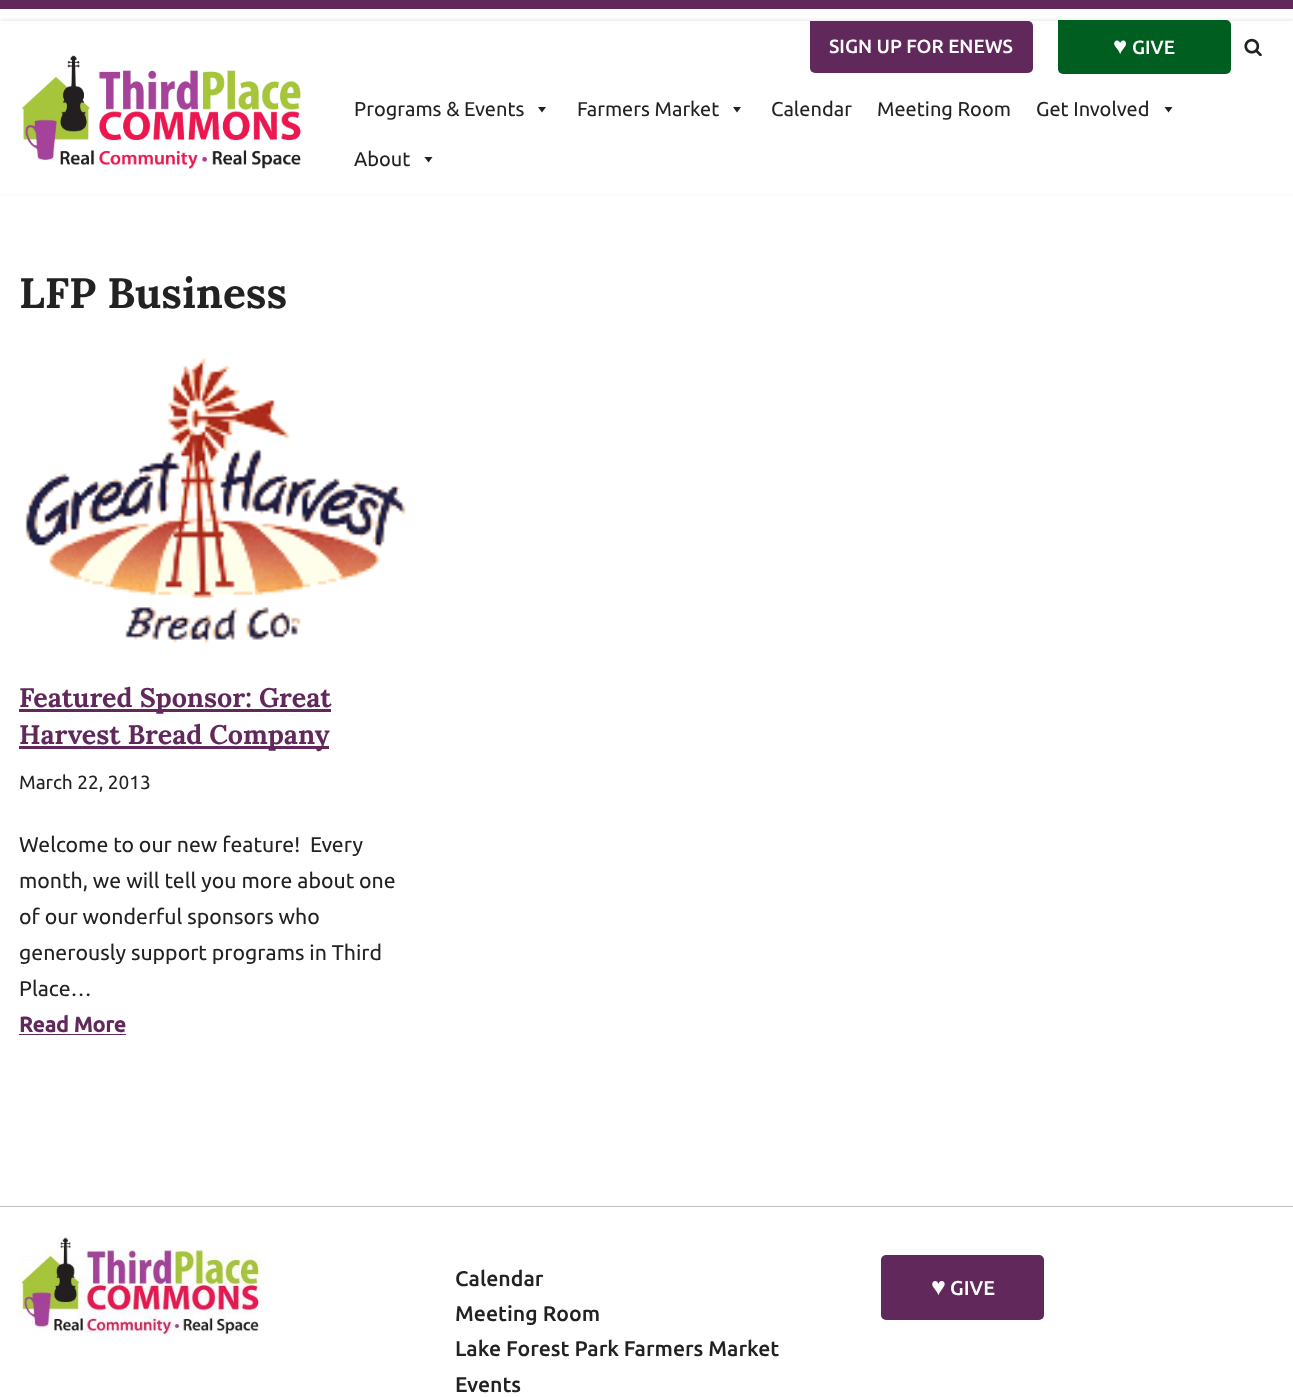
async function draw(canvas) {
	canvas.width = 1293;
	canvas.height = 1397;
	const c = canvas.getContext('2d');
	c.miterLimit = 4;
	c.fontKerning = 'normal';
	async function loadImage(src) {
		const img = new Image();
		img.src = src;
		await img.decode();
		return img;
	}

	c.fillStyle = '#fff';
	c.fillRect(0, 0, 1293, 1397);
	c.fillStyle = '#61285b';
	c.fillRect(0, 0, 1293, 9);
	c.fillStyle = '#0000001a';
	c.filter = 'blur(2px)';
	c.beginPath();
	c.rect(0, 20, 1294, 173);
	c.fill();
	c.filter = 'none';
	c.fillStyle = '#fff';
	c.fillRect(0, 21, 1293, 173);
	c.fillStyle = '#61285b';
	c.beginPath();
	c.roundRect(810, 21, 223, 52, [0, 5, 5, 5]);
	c.fill();
	c.font = '500 19.1px Ubuntu';
	c.fillStyle = '#fff';
	c.fillText('SIGN UP FOR ENEWS', 829, 53);
	c.fillStyle = '#005e20';
	c.beginPath();
	c.roundRect(1058, 20, 173, 54, [0, 5, 5, 5]);
	c.fill();
	c.font = '24px Liberation Sans';
	c.fillStyle = '#fff';
	c.fillText('♥', 1113, 54);
	c.font = '500 19.1px Ubuntu';
	c.fillText('GIVE', 1132, 54);
	c.drawImage(await loadImage('img1.png'), 1244, 38, 18, 18);
	c.drawImage(await loadImage('img2.png'), 21, 55, 280, 114);
	c.font = '20px Ubuntu';
	c.fillStyle = '#222';
	c.fillText('Programs & Events', 354, 116);
	c.beginPath();
	c.moveTo(546, 107);
	c.lineTo(542, 112.5);
	c.lineTo(538, 107);
	c.closePath();
	c.fill();
	c.fillText('Farmers Market', 577, 116);
	c.beginPath();
	c.moveTo(741, 107);
	c.lineTo(737, 112.5);
	c.lineTo(733, 107);
	c.closePath();
	c.fill();
	for (const [text, x, y] of [
		['Calendar', 771, 116],
		['Meeting Room', 877, 116],
		['Get Involved', 1036, 116],
	]) {
		c.fillText(text, x, y);
	}
	c.beginPath();
	c.moveTo(1172.5, 107);
	c.lineTo(1168.5, 112.5);
	c.lineTo(1164.5, 107);
	c.closePath();
	c.fill();
	c.fillText('About', 354, 166);
	c.beginPath();
	c.moveTo(432.5, 157);
	c.lineTo(428.5, 162.5);
	c.lineTo(424.5, 157);
	c.closePath();
	c.fill();
	c.font = 'bold 42.5px Lora';
	c.fillText('LFP Business', 19, 308);
	c.drawImage(await loadImage('img3.png'), 25, 358, 381, 285);
	c.fillStyle = '#61285b';
	c.fillRect(19, 709, 312, 3);
	c.font = 'bold 26.9px Lora';
	c.fillText('Featured Sponsor: Great', 19, 707);
	c.fillRect(19, 746, 310, 3);
	c.fillText('Harvest Bread Company', 19, 744);
	c.font = '19.1px Ubuntu';
	c.fillStyle = '#222';
	c.fillText('March 22, 2013', 19, 789);
	c.font = '21.25px Ubuntu';
	for (const [text, x, y] of [
		['Welcome to our new feature!  Every', 19, 852],
		['month, we will tell you more about one', 19, 888],
		['of our wonderful sponsors who', 19, 924],
		['generously support programs in Third', 19, 960],
		['Place…', 19, 996],
	]) {
		c.fillText(text, x, y);
	}
	c.font = 'bold 21.25px Ubuntu';
	c.fillStyle = '#61285b';
	c.fillText('Read More', 19, 1032);
	c.fillRect(19, 1034, 107, 1);
	c.fillStyle = '#bebfc5';
	c.fillRect(0, 1206, 1293, 1);
	c.drawImage(await loadImage('img4.png'), 18, 1236, 244, 100);
	c.font = '500 21.25px Ubuntu';
	c.fillStyle = '#222';
	for (const [text, x, y] of [
		['Calendar', 455, 1286],
		['Meeting Room', 455, 1321],
		['Lake Forest Park Farmers Market', 455, 1356],
		['Events', 455, 1392],
	]) {
		c.fillText(text, x, y);
	}
	c.fillStyle = '#61285b';
	c.beginPath();
	c.roundRect(881, 1255, 163, 65, 5);
	c.fill();
	c.font = '25px Liberation Sans';
	c.fillStyle = '#fff';
	c.fillText('♥', 931, 1295);
	c.font = '500 20px Ubuntu';
	c.fillText('GIVE', 950, 1295);
}

draw(document.querySelector('canvas'));
